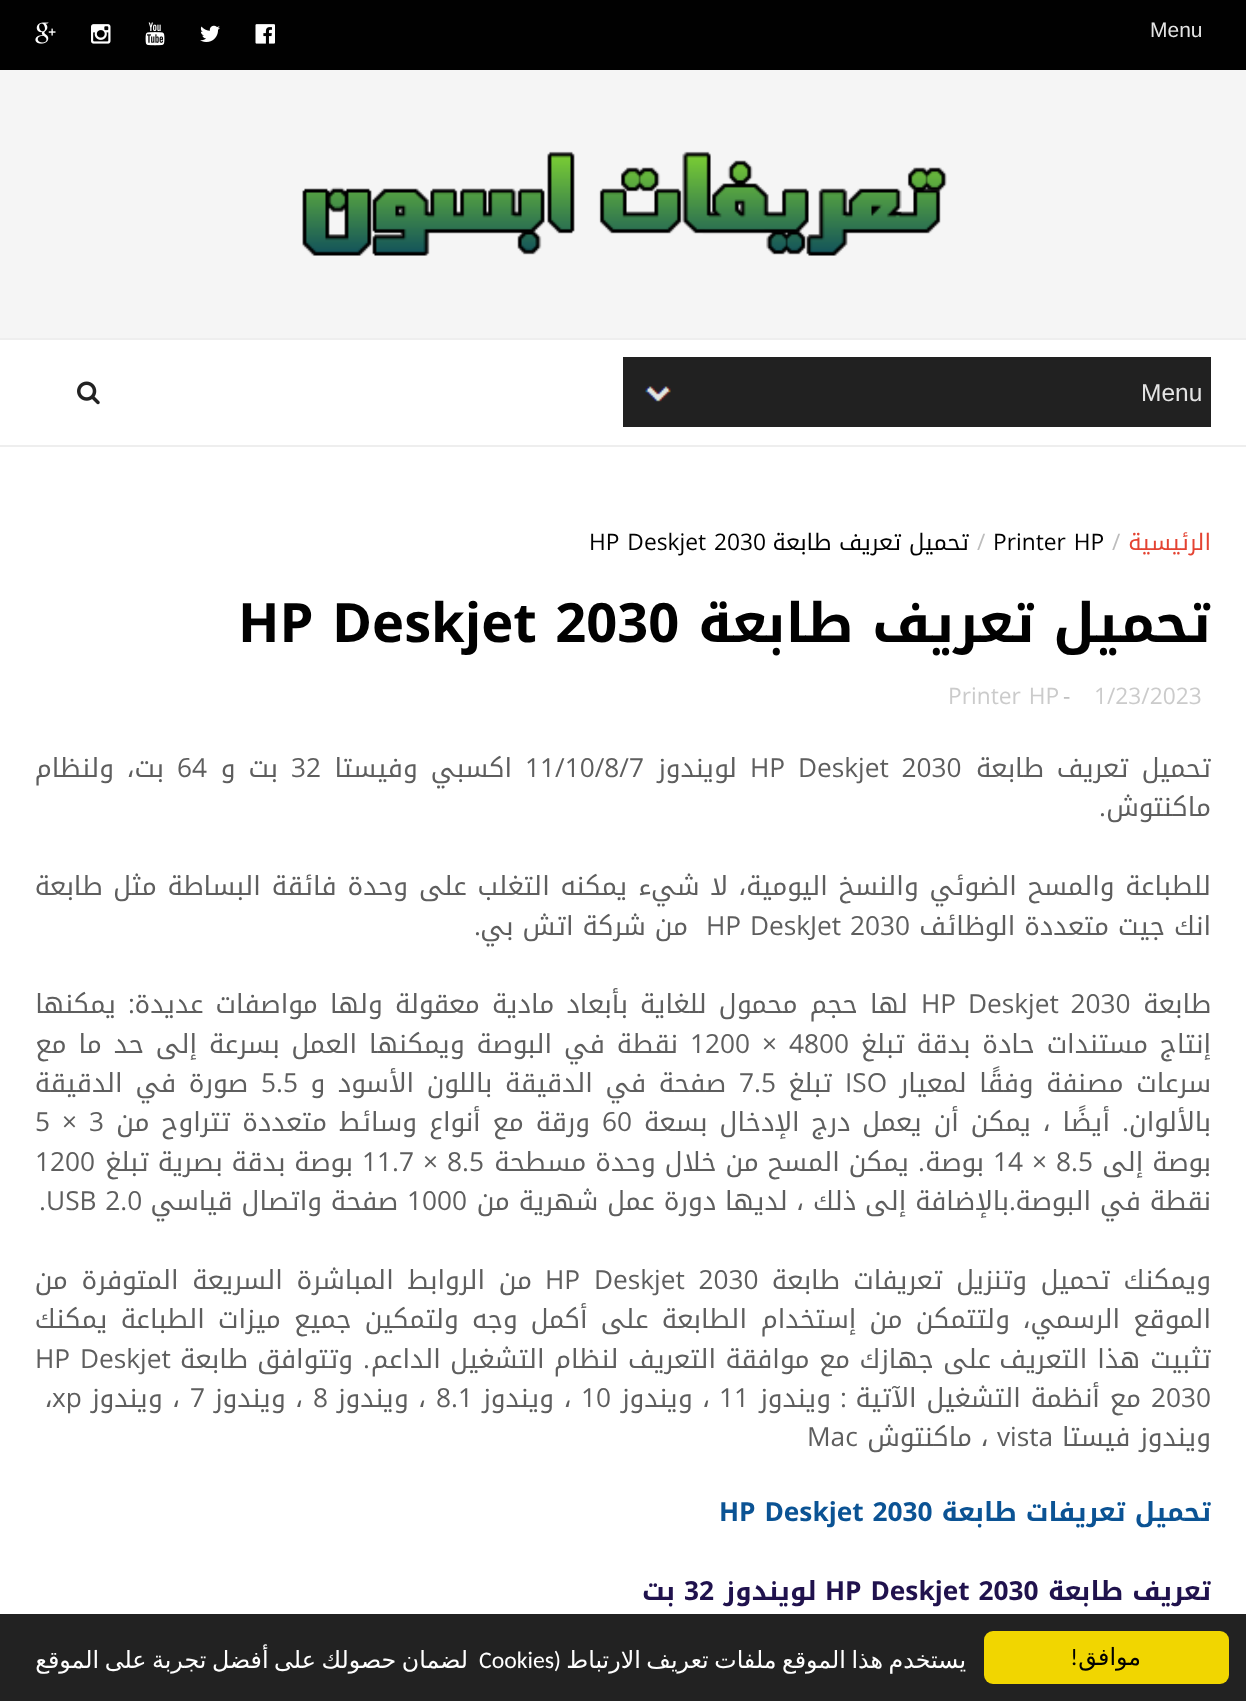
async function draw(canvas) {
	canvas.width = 1246;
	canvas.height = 1701;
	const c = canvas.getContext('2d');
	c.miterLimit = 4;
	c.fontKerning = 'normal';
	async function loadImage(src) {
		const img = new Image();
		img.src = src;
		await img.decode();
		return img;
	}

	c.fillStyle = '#fff';
	c.fillRect(0, 0, 1246, 1701);
	c.fillStyle = '#010101';
	c.fillRect(0, 0, 1246, 70);
	c.font = '21px Liberation Sans';
	c.fillStyle = '#e4e4e4';
	c.fillText('Menu', 1150, 37);
	c.drawImage(await loadImage('img1.png'), 255, 24, 20, 20);
	c.drawImage(await loadImage('img2.png'), 200, 25, 20, 17);
	c.drawImage(await loadImage('img3.png'), 145, 22, 20, 24);
	c.drawImage(await loadImage('img4.png'), 91, 24, 20, 20);
	c.drawImage(await loadImage('img5.png'), 35, 22, 21, 22);
	c.fillStyle = '#f5f5f5';
	c.fillRect(0, 70, 1246, 268);
	c.drawImage(await loadImage('img6.png'), 302, 151, 645, 105);
	for (const [x, y, w, h, color] of [
		[0, 338, 1246, 2, '#eee'],
		[0, 445, 1246, 2, '#eee'],
		[623, 357, 588, 70, '#212121'],
	]) {
		c.fillStyle = color;
		c.fillRect(x, y, w, h);
	}
	c.drawImage(await loadImage('img7.png'), 645, 386, 26, 16);
	c.font = '24.5px Liberation Sans';
	c.fillStyle = '#e4e4e4';
	c.fillText('Menu', 1141, 401);
	c.drawImage(await loadImage('img8.png'), 77, 381, 23, 24);
	c.direction = 'rtl';
	c.font = '22.75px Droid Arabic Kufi';
	c.fillStyle = '#e44332';
	c.fillText('الرئيسية', 1211, 550);
	c.direction = 'ltr';
	c.font = '22.75px Open Sans';
	c.fillStyle = '#bdbdbd';
	c.fillText('/', 1112, 550);
	c.wordSpacing = '2px';
	c.fillStyle = '#010101';
	c.fillText('Printer HP', 993, 550);
	c.wordSpacing = '0px';
	c.fillStyle = '#bdbdbd';
	c.fillText('/', 977, 550);
	c.direction = 'rtl';
	c.font = '22.75px Droid Arabic Kufi';
	c.fillStyle = '#010101';
	c.fillText('تحميل تعريف طابعة', 969, 550);
	c.wordSpacing = '2px';
	c.direction = 'ltr';
	c.font = '22.75px Open Sans';
	c.fillText('HP Deskjet 2030', 589, 550);
	c.wordSpacing = '0px';
	c.direction = 'rtl';
	c.font = 'bold 54.25px Droid Arabic Kufi';
	c.fillText('تحميل تعريف طابعة', 1211, 642);
	c.wordSpacing = '4.25px';
	c.direction = 'ltr';
	c.font = 'bold 54.25px Open Sans';
	c.fillText('HP Deskjet 2030', 238, 642);
	c.wordSpacing = '0px';
	c.font = '22.75px Open Sans';
	c.fillStyle = '#cbcbcb';
	c.fillText('1/23/2023', 1094, 704);
	c.fillStyle = '#bdbdbd';
	c.fillText('-', 1063, 704);
	c.wordSpacing = '2px';
	c.fillStyle = '#cbcbcb';
	c.fillText('Printer HP', 948, 704);
	c.wordSpacing = '4.25px';
	c.direction = 'rtl';
	c.font = '26.25px Droid Arabic Kufi';
	c.fillStyle = '#5e5e5e';
	c.fillText('تحميل تعريف طابعة', 1211, 777);
	c.wordSpacing = '6px';
	c.direction = 'ltr';
	c.font = '26.25px Open Sans';
	c.fillText('HP Deskjet 2030', 750, 777);
	c.wordSpacing = '0px';
	c.direction = 'rtl';
	c.font = '26.25px Droid Arabic Kufi';
	c.fillText('لويندوز', 737, 777);
	c.direction = 'ltr';
	c.font = '26.25px Open Sans';
	c.fillText('11/10/8/7', 525, 777);
	c.wordSpacing = '4.25px';
	c.direction = 'rtl';
	c.font = '26.25px Droid Arabic Kufi';
	c.fillText('اكسبي وفيستا', 512, 777);
	c.wordSpacing = '0px';
	c.direction = 'ltr';
	c.font = '26.25px Open Sans';
	c.fillText('32', 291, 777);
	c.wordSpacing = '4.25px';
	c.direction = 'rtl';
	c.font = '26.25px Droid Arabic Kufi';
	c.fillText('بت و', 278, 777);
	c.wordSpacing = '0px';
	c.direction = 'ltr';
	c.font = '26.25px Open Sans';
	c.fillText('64', 177, 777);
	c.wordSpacing = '4.25px';
	c.direction = 'rtl';
	c.font = '26.25px Droid Arabic Kufi';
	c.fillText('بت، ولنظام', 164, 777);
	c.wordSpacing = '0px';
	c.fillText('ماكنتوش', 1211, 816);
	c.font = '26.25px Open Sans';
	c.fillText('.', 1106, 816);
	c.wordSpacing = '1.9px';
	c.font = '26.25px Droid Arabic Kufi';
	c.fillText('للطباعة والمسح الضوئي والنسخ اليومية، لا شيء يمكنه التغلب على وحدة فائقة البساطة مثل طابعة', 1211, 895);
	c.wordSpacing = '0px';
	c.fillText('انك جيت متعددة الوظائف', 1211, 935);
	c.wordSpacing = '2px';
	c.direction = 'ltr';
	c.font = '26.25px Open Sans';
	c.fillText('HP DeskJet 2030', 706, 935);
	c.wordSpacing = '0px';
	c.direction = 'rtl';
	c.font = '26.25px Droid Arabic Kufi';
	c.fillText('من شركة اتش بي', 688, 935);
	c.font = '26.25px Open Sans';
	c.fillText('.', 481, 935);
	c.font = '26.25px Droid Arabic Kufi';
	c.fillText('طابعة', 1211, 1013);
	c.wordSpacing = '5px';
	c.direction = 'ltr';
	c.font = '26.25px Open Sans';
	c.fillText('HP Deskjet 2030', 921, 1013);
	c.wordSpacing = '3.25px';
	c.direction = 'rtl';
	c.font = '26.25px Droid Arabic Kufi';
	c.fillText('لها حجم محمول للغاية بأبعاد مادية معقولة ولها مواصفات عديدة', 908, 1013);
	c.wordSpacing = '0px';
	c.font = '26.25px Open Sans';
	c.fillText(':', 135, 1013);
	c.font = '26.25px Droid Arabic Kufi';
	c.fillText('يمكنها', 116, 1013);
	c.wordSpacing = '3px';
	c.fillText('إنتاج مستندات حادة بدقة تبلغ', 1211, 1053);
	c.wordSpacing = '0px';
	c.direction = 'ltr';
	c.font = '26.25px Open Sans';
	for (const [text, x, y] of [
		['4800', 789, 1053],
		['×', 762, 1053],
		['1200', 690, 1053],
	]) {
		c.fillText(text, x, y);
	}
	c.wordSpacing = '3px';
	c.direction = 'rtl';
	c.font = '26.25px Droid Arabic Kufi';
	c.fillText('نقطة في البوصة ويمكنها العمل بسرعة إلى حد ما مع', 678, 1053);
	c.wordSpacing = '3.75px';
	c.fillText('سرعات مصنفة وفقًا لمعيار', 1211, 1092);
	c.wordSpacing = '0px';
	c.direction = 'ltr';
	c.font = '26.25px Open Sans';
	c.fillText('ISO', 845, 1092);
	c.direction = 'rtl';
	c.font = '26.25px Droid Arabic Kufi';
	c.fillText('تبلغ', 832, 1092);
	c.direction = 'ltr';
	c.font = '26.25px Open Sans';
	c.fillText('7.5', 739, 1092);
	c.wordSpacing = '3.75px';
	c.direction = 'rtl';
	c.font = '26.25px Droid Arabic Kufi';
	c.fillText('صفحة في الدقيقة باللون الأسود و', 726, 1092);
	c.wordSpacing = '0px';
	c.direction = 'ltr';
	c.font = '26.25px Open Sans';
	c.fillText('5.5', 261, 1092);
	c.wordSpacing = '3.75px';
	c.direction = 'rtl';
	c.font = '26.25px Droid Arabic Kufi';
	c.fillText('صورة في الدقيقة', 248, 1092);
	c.wordSpacing = '0px';
	c.fillText('بالألوان', 1211, 1131);
	c.wordSpacing = '3px';
	c.fillText('أيضًا ، يمكن أن يعمل درج الإدخال بسعة', 1110, 1131);
	c.wordSpacing = '0px';
	c.direction = 'ltr';
	c.font = '26.25px Open Sans';
	c.fillText('60', 602, 1131);
	c.wordSpacing = '3px';
	c.direction = 'rtl';
	c.font = '26.25px Droid Arabic Kufi';
	c.fillText('ورقة مع أنواع وسائط متعددة تتراوح من', 590, 1131);
	c.wordSpacing = '0px';
	c.direction = 'ltr';
	c.font = '26.25px Open Sans';
	for (const [text, x, y] of [
		['3', 89, 1131],
		['×', 62, 1131],
		['5', 35, 1131],
	]) {
		c.fillText(text, x, y);
	}
	c.direction = 'rtl';
	c.fillText('.', 1129, 1131);
	c.font = '26.25px Droid Arabic Kufi';
	c.fillText('بوصة إلى', 1211, 1171);
	c.direction = 'ltr';
	c.font = '26.25px Open Sans';
	for (const [text, x, y] of [
		['8.5', 1056, 1171],
		['×', 1032, 1171],
		['14', 993, 1171],
	]) {
		c.fillText(text, x, y);
	}
	c.direction = 'rtl';
	c.font = '26.25px Droid Arabic Kufi';
	c.fillText('بوصة', 984, 1171);
	c.fillText('يمكن المسح من خلال وحدة مسطحة', 909, 1171);
	c.direction = 'ltr';
	c.font = '26.25px Open Sans';
	for (const [text, x, y] of [
		['8.5', 447, 1171],
		['×', 423, 1171],
		['11.7', 362, 1171],
	]) {
		c.fillText(text, x, y);
	}
	c.direction = 'rtl';
	c.font = '26.25px Droid Arabic Kufi';
	c.fillText('بوصة بدقة بصرية تبلغ', 353, 1171);
	c.direction = 'ltr';
	c.font = '26.25px Open Sans';
	c.fillText('1200', 35, 1171);
	c.direction = 'rtl';
	c.fillText('.', 925, 1171);
	c.font = '26.25px Droid Arabic Kufi';
	c.fillText('نقطة في البوصة', 1211, 1210);
	c.font = '26.25px Open Sans';
	c.fillText('.', 1016, 1210);
	c.font = '26.25px Droid Arabic Kufi';
	c.fillText('بالإضافة إلى ذلك ، لديها دورة عمل شهرية من', 1009, 1210);
	c.direction = 'ltr';
	c.font = '26.25px Open Sans';
	c.fillText('1000', 407, 1210);
	c.direction = 'rtl';
	c.font = '26.25px Droid Arabic Kufi';
	c.fillText('صفحة واتصال قياسي', 398, 1210);
	c.wordSpacing = '2px';
	c.direction = 'ltr';
	c.font = '26.25px Open Sans';
	c.fillText('USB 2.0', 46, 1210);
	c.wordSpacing = '0px';
	c.fillText('.', 39, 1210);
	c.wordSpacing = '4.75px';
	c.direction = 'rtl';
	c.font = '26.25px Droid Arabic Kufi';
	c.fillText('ويمكنك تحميل وتنزيل تعريفات طابعة', 1211, 1289);
	c.wordSpacing = '7px';
	c.direction = 'ltr';
	c.font = '26.25px Open Sans';
	c.fillText('HP Deskjet 2030', 545, 1289);
	c.wordSpacing = '4.75px';
	c.direction = 'rtl';
	c.font = '26.25px Droid Arabic Kufi';
	c.fillText('من الروابط المباشرة السريعة المتوفرة من', 532, 1289);
	c.wordSpacing = '4.25px';
	c.fillText('الموقع الرسمي، ولتتمكن من إستخدام', 1211, 1328);
	c.fillText('الطابعة على أكمل وجه ولتمكين جميع ميزات الطباعة يمكنك', 747, 1328);
	c.wordSpacing = '1px';
	c.fillText('تثبيت هذا التعريف', 1211, 1368);
	c.wordSpacing = '0.5px';
	c.fillText('على جهازك مع موافقة التعريف لنظام التشغيل الداعم', 991, 1368);
	c.wordSpacing = '0px';
	c.font = '26.25px Open Sans';
	c.fillText('.', 370, 1368);
	c.wordSpacing = '0.5px';
	c.font = '26.25px Droid Arabic Kufi';
	c.fillText('وتتوافق طابعة', 353, 1368);
	c.wordSpacing = '3px';
	c.direction = 'ltr';
	c.font = '26.25px Open Sans';
	c.fillText('HP Deskjet', 35, 1368);
	c.wordSpacing = '0px';
	c.fillText('2030', 1151, 1407);
	c.wordSpacing = '1px';
	c.direction = 'rtl';
	c.font = '26.25px Droid Arabic Kufi';
	c.fillText('مع أنظمة التشغيل الآتية', 1141, 1407);
	c.wordSpacing = '0px';
	c.font = '26.25px Open Sans';
	c.fillText(':', 847, 1407);
	c.font = '26.25px Droid Arabic Kufi';
	c.fillText('ويندوز', 831, 1407);
	c.direction = 'ltr';
	c.font = '26.25px Open Sans';
	c.fillText('11', 719, 1407);
	c.wordSpacing = '1px';
	c.direction = 'rtl';
	c.font = '26.25px Droid Arabic Kufi';
	c.fillText('، ويندوز', 710, 1407);
	c.wordSpacing = '0px';
	c.direction = 'ltr';
	c.font = '26.25px Open Sans';
	c.fillText('10', 581, 1407);
	c.font = '26.25px Droid Arabic Kufi';
	c.fillText('،', 564, 1407);
	c.direction = 'rtl';
	c.fillText('ويندوز', 554, 1407);
	c.direction = 'ltr';
	c.font = '26.25px Open Sans';
	c.fillText('8.1', 436, 1407);
	c.wordSpacing = '1px';
	c.direction = 'rtl';
	c.font = '26.25px Droid Arabic Kufi';
	c.fillText('، ويندوز', 426, 1407);
	c.wordSpacing = '0px';
	c.direction = 'ltr';
	c.font = '26.25px Open Sans';
	c.fillText('8', 313, 1407);
	c.wordSpacing = '1px';
	c.direction = 'rtl';
	c.font = '26.25px Droid Arabic Kufi';
	c.fillText('، ويندوز', 303, 1407);
	c.wordSpacing = '0px';
	c.direction = 'ltr';
	c.font = '26.25px Open Sans';
	c.fillText('7', 190, 1407);
	c.wordSpacing = '1px';
	c.direction = 'rtl';
	c.font = '26.25px Droid Arabic Kufi';
	c.fillText('، ويندوز', 180, 1407);
	c.wordSpacing = '0px';
	c.direction = 'ltr';
	c.font = '26.25px Open Sans';
	c.fillText('xp', 52, 1407);
	c.font = '26.25px Droid Arabic Kufi';
	c.fillText('،', 45, 1407);
	c.direction = 'rtl';
	c.fillText('ويندوز فيستا', 1211, 1446);
	c.direction = 'ltr';
	c.font = '26.25px Open Sans';
	c.fillText('vista', 997, 1446);
	c.font = '26.25px Droid Arabic Kufi';
	c.fillText('،', 981, 1446);
	c.direction = 'rtl';
	c.fillText('ماكنتوش', 972, 1446);
	c.direction = 'ltr';
	c.font = '26.25px Open Sans';
	c.fillText('Mac', 807, 1446);
	c.direction = 'rtl';
	c.font = 'bold 26.25px Droid Arabic Kufi';
	c.fillStyle = '#0b5394';
	c.fillText('تحميل تعريفات طابعة', 1211, 1521);
	c.wordSpacing = '2px';
	c.direction = 'ltr';
	c.font = 'bold 26.25px Open Sans';
	c.fillText('HP Deskjet 2030', 719, 1521);
	c.wordSpacing = '0px';
	c.direction = 'rtl';
	c.font = 'bold 26.25px Droid Arabic Kufi';
	c.fillStyle = '#20124d';
	c.fillText('تعريف طابعة', 1211, 1600);
	c.wordSpacing = '2px';
	c.direction = 'ltr';
	c.font = 'bold 26.25px Open Sans';
	c.fillText('HP Deskjet 2030', 825, 1600);
	c.wordSpacing = '0px';
	c.direction = 'rtl';
	c.font = 'bold 26.25px Droid Arabic Kufi';
	c.fillText('لويندوز', 817, 1600);
	c.direction = 'ltr';
	c.font = 'bold 26.25px Open Sans';
	c.fillText('32', 684, 1600);
	c.direction = 'rtl';
	c.font = 'bold 26.25px Droid Arabic Kufi';
	c.fillText('بت', 675, 1600);
	c.fillStyle = '#222';
	c.fillRect(0, 1614, 1246, 87);
	c.fillStyle = '#f1d600';
	c.beginPath();
	c.roundRect(984, 1631, 245, 53, 9);
	c.fill();
	c.font = '23.75px DejaVu Sans';
	c.fillStyle = '#010101';
	c.fillText('موافق', 1141, 1665);
	c.font = '23.75px Carlito';
	c.fillText('!', 1078, 1665);
	c.wordSpacing = '-2px';
	c.font = '23.75px DejaVu Sans';
	c.fillStyle = '#fff';
	c.fillText('يستخدم هذا الموقع ملفات تعريف الارتباط', 966, 1668);
	c.wordSpacing = '0px';
	c.font = '23.75px Carlito';
	c.fillText('(', 561, 1668);
	c.direction = 'ltr';
	c.fillText('Cookies', 479, 1668);
	c.wordSpacing = '-2px';
	c.direction = 'rtl';
	c.font = '23.75px DejaVu Sans';
	c.fillText('لضمان حصولك على أفضل تجربة على الموقع', 468, 1668);
}

draw(document.querySelector('canvas'));
